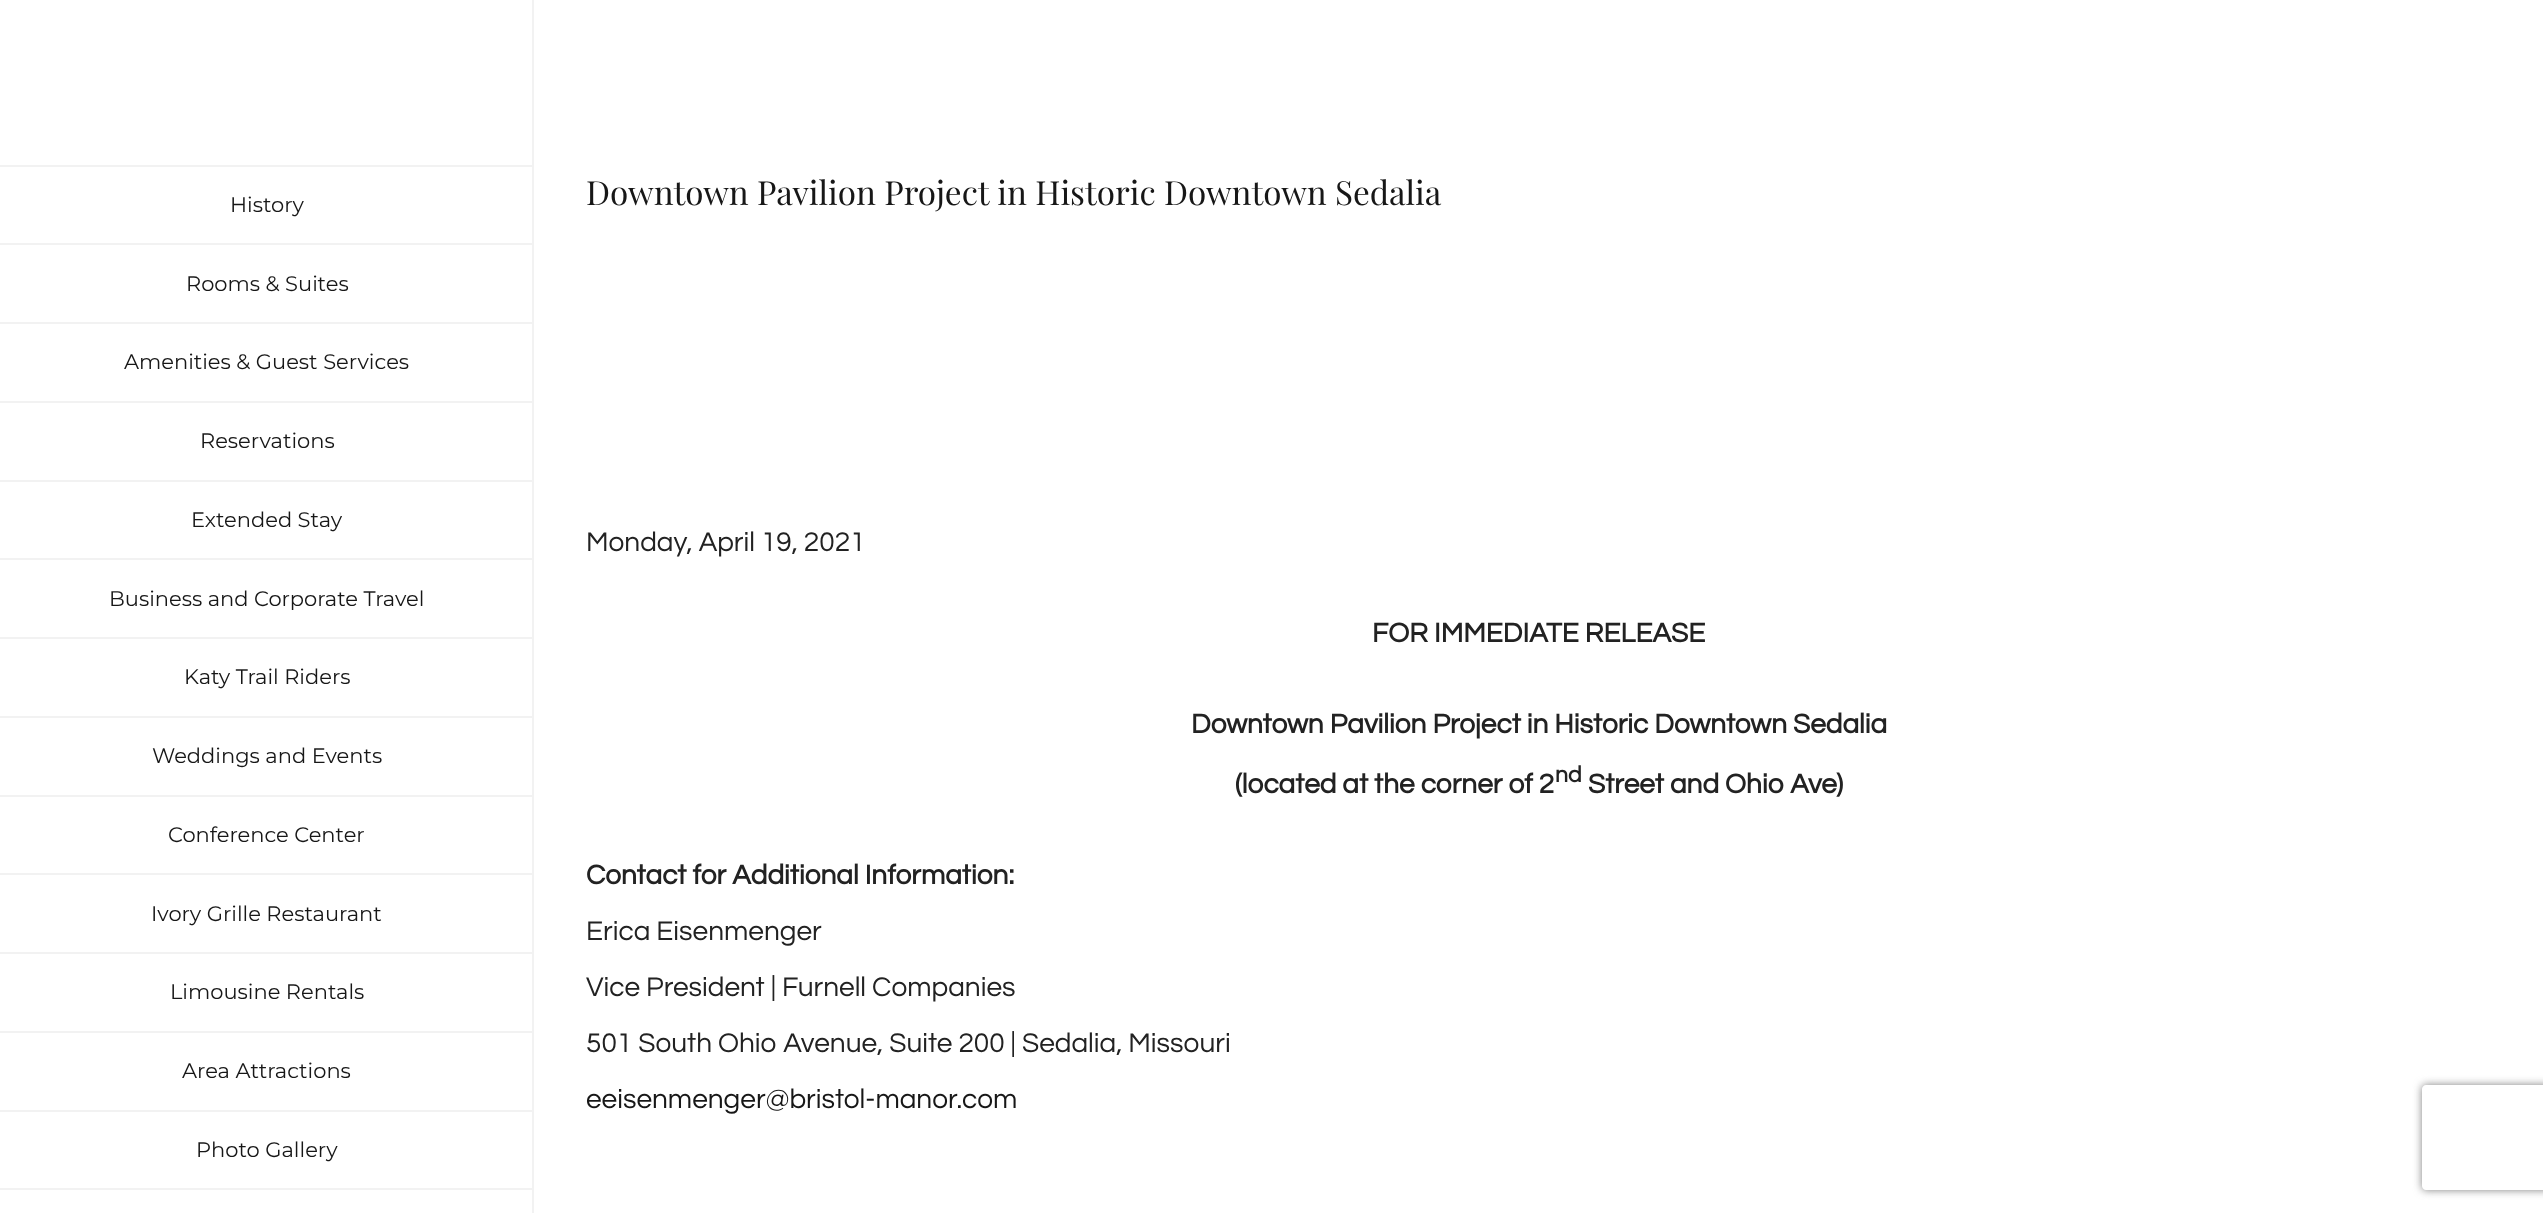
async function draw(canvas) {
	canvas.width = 2543;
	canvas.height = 1213;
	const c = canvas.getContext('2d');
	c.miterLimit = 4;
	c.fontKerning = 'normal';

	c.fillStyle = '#fff';
	c.fillRect(0, 0, 2543, 1213);
	for (const [x, y, w, h, color] of [
		[532, 0, 2, 1213, '#f2f2f2'],
		[0, 165, 534, 2, '#f2f2f2'],
		[0, 243, 534, 2, '#f2f2f2'],
	]) {
		c.fillStyle = color;
		c.fillRect(x, y, w, h);
	}
	c.font = '100 21px Montserrat';
	c.fillStyle = '#171717';
	c.fillText('History', 230, 212);
	c.fillStyle = '#f2f2f2';
	c.fillRect(0, 322, 534, 2);
	c.fillStyle = '#171717';
	c.fillText('Rooms & Suites', 186, 291);
	c.fillStyle = '#f2f2f2';
	c.fillRect(0, 401, 534, 2);
	c.fillStyle = '#171717';
	c.fillText('Amenities & Guest Services', 124, 369);
	c.fillStyle = '#f2f2f2';
	c.fillRect(0, 480, 534, 2);
	c.fillStyle = '#171717';
	c.fillText('Reservations', 200, 448);
	c.fillStyle = '#f2f2f2';
	c.fillRect(0, 558, 534, 2);
	c.fillStyle = '#171717';
	c.fillText('Extended Stay', 191, 527);
	c.fillStyle = '#f2f2f2';
	c.fillRect(0, 637, 534, 2);
	c.fillStyle = '#171717';
	c.fillText('Business and Corporate Travel', 109, 606);
	c.fillStyle = '#f2f2f2';
	c.fillRect(0, 716, 534, 2);
	c.fillStyle = '#171717';
	c.fillText('Katy Trail Riders', 184, 684);
	c.fillStyle = '#f2f2f2';
	c.fillRect(0, 795, 534, 2);
	c.fillStyle = '#171717';
	c.fillText('Weddings and Events', 152, 763);
	c.fillStyle = '#f2f2f2';
	c.fillRect(0, 873, 534, 2);
	c.fillStyle = '#171717';
	c.fillText('Conference Center', 168, 842);
	c.fillStyle = '#f2f2f2';
	c.fillRect(0, 952, 534, 2);
	c.fillStyle = '#171717';
	c.fillText('Ivory Grille Restaurant', 151, 921);
	c.fillStyle = '#f2f2f2';
	c.fillRect(0, 1031, 534, 2);
	c.fillStyle = '#171717';
	c.fillText('Limousine Rentals', 170, 999);
	c.fillStyle = '#f2f2f2';
	c.fillRect(0, 1110, 534, 2);
	c.fillStyle = '#171717';
	c.fillText('Area Attractions', 182, 1078);
	c.fillStyle = '#f2f2f2';
	c.fillRect(0, 1188, 534, 2);
	c.fillStyle = '#171717';
	c.fillText('Photo Gallery', 196, 1157);
	c.font = '33.25px Playfair Display';
	c.fillText('Downtown Pavilion Project in Historic Downtown Sedalia', 586, 205);
	c.font = '28px Questrial';
	c.fillStyle = '#222';
	c.fillText('Monday, April 19, 2021', 586, 551);
	c.font = 'bold 28px Questrial';
	for (const [text, x, y] of [
		['FOR IMMEDIATE RELEASE', 1372, 642],
		['Downtown Pavilion Project in Historic Downtown Sedalia', 1191, 733],
		['(located at the corner of 2', 1235, 793],
	]) {
		c.fillText(text, x, y);
	}
	c.font = 'bold 23px Questrial';
	c.fillText('nd', 1555, 782);
	c.font = 'bold 28px Questrial';
	c.fillText('Street and Ohio Ave)', 1588, 793);
	c.fillText('Contact for Additional Information:', 586, 884);
	c.font = '28px Questrial';
	for (const [text, x, y] of [
		['Erica Eisenmenger', 586, 940],
		['Vice President | Furnell Companies', 586, 996],
		['501 South Ohio Avenue, Suite 200 | Sedalia, Missouri', 586, 1052],
	]) {
		c.fillText(text, x, y);
	}
	c.fillStyle = '#171717';
	c.fillText('eeisenmenger@bristol-manor.com', 586, 1108);
	c.save();
	c.beginPath();
	c.moveTo(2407, 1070);
	c.lineTo(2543, 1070);
	c.lineTo(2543, 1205);
	c.lineTo(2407, 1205);
	c.closePath();
	c.moveTo(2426, 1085);
	c.lineTo(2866, 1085);
	c.bezierCurveTo(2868, 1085, 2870, 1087, 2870, 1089);
	c.lineTo(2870, 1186);
	c.bezierCurveTo(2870, 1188, 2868, 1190, 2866, 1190);
	c.lineTo(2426, 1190);
	c.bezierCurveTo(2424, 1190, 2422, 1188, 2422, 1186);
	c.lineTo(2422, 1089);
	c.bezierCurveTo(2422, 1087, 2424, 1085, 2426, 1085);
	c.closePath();
	c.clip('evenodd');
	c.fillStyle = '#808080';
	c.filter = 'blur(4.5px)';
	c.beginPath();
	c.roundRect(2422, 1085, 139, 105, 4);
	c.fill();
	c.filter = 'none';
	c.restore();
}

draw(document.querySelector('canvas'));
